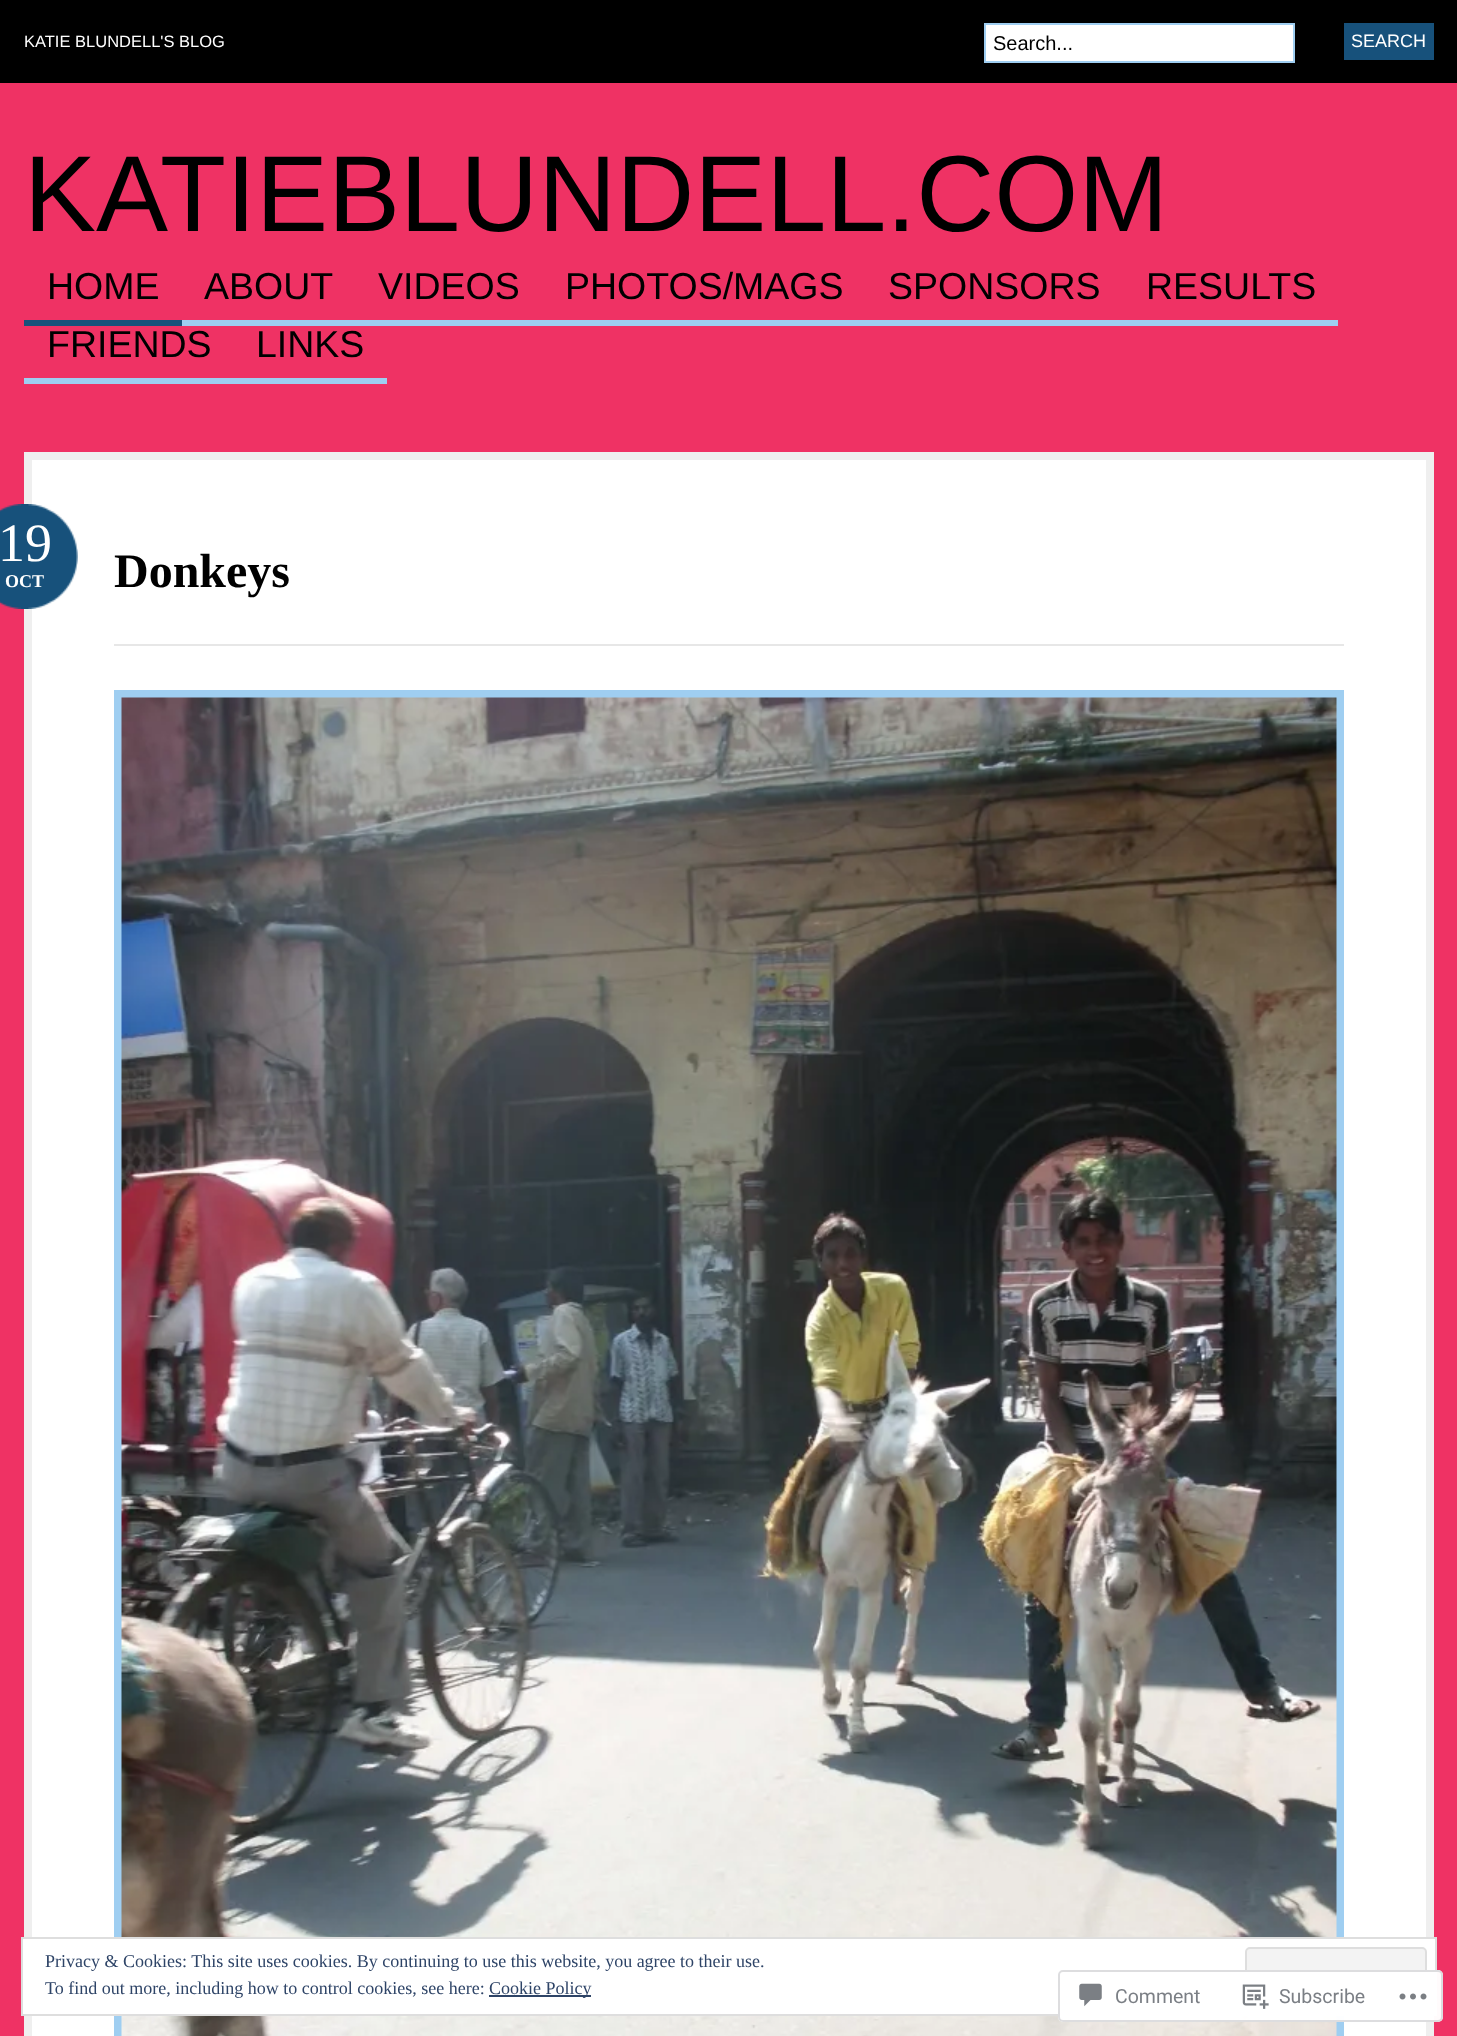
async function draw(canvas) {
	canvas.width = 1457;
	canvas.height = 2036;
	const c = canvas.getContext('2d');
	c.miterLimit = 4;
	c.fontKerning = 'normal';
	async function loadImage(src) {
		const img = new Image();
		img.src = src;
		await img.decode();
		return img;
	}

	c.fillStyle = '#ef3264';
	c.fillRect(0, 0, 1457, 2036);
	c.fillStyle = '#000';
	c.fillRect(0, 0, 1457, 83);
	c.font = '16.5px Liberation Sans';
	c.fillStyle = '#fff';
	c.fillText('KATIE BLUNDELL\'S BLOG', 24, 47);
	c.beginPath();
	c.rect(985, 24, 309, 38);
	c.fill();
	c.strokeStyle = '#9fcef1';
	c.lineWidth = 2;
	c.stroke();
	c.font = '20px Liberation Sans';
	c.fillStyle = '#000';
	c.fillText('Search...', 993, 50);
	c.fillStyle = '#17517b';
	c.fillRect(1344, 23, 90, 37);
	c.font = '18px Liberation Sans';
	c.fillStyle = '#fff';
	c.fillText('SEARCH', 1351, 47);
	c.font = '108px Liberation Sans';
	c.fillStyle = '#000';
	c.fillText('KATIEBLUNDELL.COM', 24, 231);
	c.fillStyle = '#17517b';
	c.fillRect(24, 320, 158, 6);
	c.font = '37.5px Liberation Sans';
	c.fillStyle = '#000';
	c.fillText('HOME', 47, 299);
	c.fillStyle = '#9fcef1';
	c.fillRect(182, 320, 1156, 6);
	c.fillStyle = '#000';
	for (const [text, x, y] of [
		['ABOUT', 204, 299],
		['VIDEOS', 378, 299],
		['PHOTOS/MAGS', 565, 299],
		['SPONSORS', 888, 299],
		['RESULTS', 1146, 299],
	]) {
		c.fillText(text, x, y);
	}
	c.fillStyle = '#9fcef1';
	c.fillRect(24, 378, 363, 6);
	c.fillStyle = '#000';
	c.fillText('FRIENDS', 47, 357);
	c.fillText('LINKS', 256, 357);
	c.fillStyle = '#fff';
	c.beginPath();
	c.rect(28, 456, 1402, 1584);
	c.fill();
	c.strokeStyle = '#efefef';
	c.lineWidth = 8;
	c.stroke();
	c.drawImage(await loadImage('img1.png'), 0, 504, 78, 105);
	c.font = '54px Liberation Serif';
	c.fillText('19', -2, 561);
	c.font = 'bold 18px Liberation Serif';
	c.fillText('OCT', 5, 587);
	c.fillStyle = '#e7e7e7';
	c.fillRect(114, 644, 1230, 2);
	c.font = 'bold 48px Liberation Serif';
	c.fillStyle = '#000';
	c.fillText('Donkeys', 114, 587);
	c.strokeStyle = '#9fcef1';
	c.strokeRect(118, 694, 1222, 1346);
	c.drawImage(await loadImage('img2.png'), 121, 697, 1216, 1339);
	c.fillStyle = '#fff';
	c.beginPath();
	c.rect(22, 1938, 1414, 77);
	c.fill();
	c.strokeStyle = '#dedede';
	c.lineWidth = 2;
	c.stroke();
	c.font = '18px Liberation Serif';
	c.fillStyle = '#2e4467';
	c.fillText('Privacy & Cookies: This site uses cookies. By continuing to use this website, you agree to their use.', 45, 1967);
	c.fillStyle = '#f3f3f3';
	c.beginPath();
	c.roundRect(1246, 1948, 180, 57, 4);
	c.fill();
	c.stroke();
	c.fillStyle = '#2e4467';
	c.fillText('To find out more, including how to control cookies, see here:', 45, 1994);
	c.fillRect(489, 1995, 102, 2);
	c.fillText('Cookie Policy', 489, 1994);
	c.fillStyle = '#fffffffa';
	c.beginPath();
	c.roundRect(1058, 1970, 385, 52, 5);
	c.fill();
	c.beginPath();
	c.roundRect(1059, 1971, 383, 50, 4);
	c.strokeStyle = '#dcdcdefa';
	c.stroke();
	c.drawImage(await loadImage('img3.png'), 1079, 1983, 23, 24);
	c.font = '19.5px Roboto';
	c.fillStyle = '#7b7f85';
	c.fillText('Comment', 1115, 2003);
	c.drawImage(await loadImage('img4.png'), 1242, 1984, 27, 25);
	c.fillText('Subscribe', 1279, 2003);
	c.drawImage(await loadImage('img5.png'), 1399, 1993, 28, 7);
}

draw(document.querySelector('canvas'));
